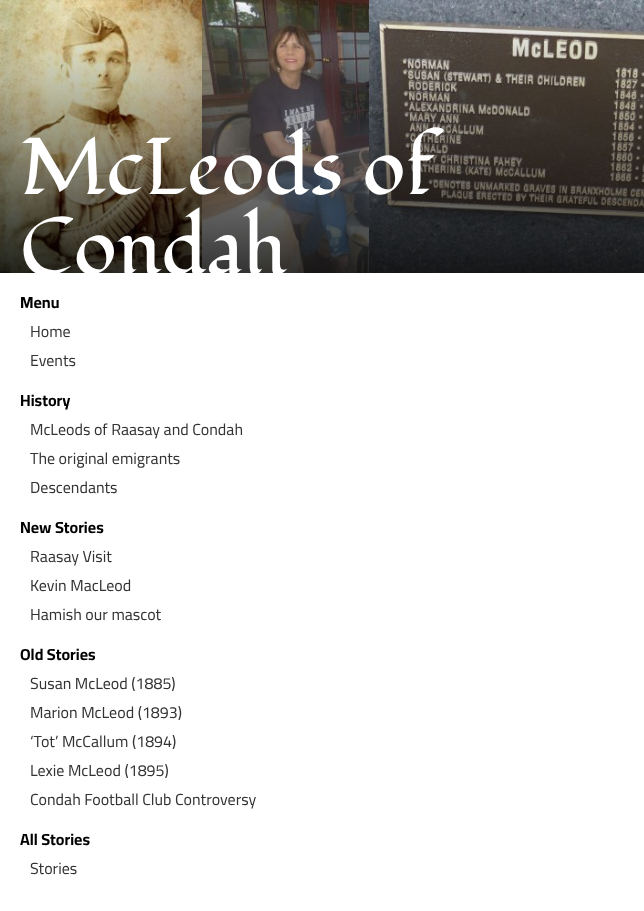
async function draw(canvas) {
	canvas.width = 644;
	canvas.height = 911;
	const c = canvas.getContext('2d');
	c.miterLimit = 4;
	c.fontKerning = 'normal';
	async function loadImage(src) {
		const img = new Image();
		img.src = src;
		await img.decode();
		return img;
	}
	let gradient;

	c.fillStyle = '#fff';
	c.fillRect(0, 0, 644, 911);
	c.drawImage(await loadImage('img1.png'), 0, 0, 202, 273);
	c.drawImage(await loadImage('img2.png'), 202, 0, 167, 273);
	c.drawImage(await loadImage('img3.png'), 369, 0, 275, 273);
	gradient = c.createLinearGradient(322, 0, 322, 273);
	gradient.addColorStop(0, '#00000000');
	gradient.addColorStop(1, '#000000cc');
	c.fillStyle = gradient;
	c.fillRect(0, 7, 644, 266);
	c.font = '80px Fondamento';
	c.fillStyle = '#fff';
	c.fillText('McLeods of', 20, 194);
	c.fillText('Condah', 20, 274);
	c.font = 'bold 16px Cairo';
	c.fillStyle = '#000';
	c.fillText('Menu', 20, 308);
	c.font = '16px Cairo';
	c.fillStyle = '#333';
	c.fillText('Home', 30, 337);
	c.fillText('Events', 30, 366);
	c.font = 'bold 16px Cairo';
	c.fillStyle = '#000';
	c.fillText('History', 20, 406);
	c.font = '16px Cairo';
	c.fillStyle = '#333';
	for (const [text, x, y] of [
		['McLeods of Raasay and Condah', 30, 435],
		['The original emigrants', 30, 464],
		['Descendants', 30, 493],
	]) {
		c.fillText(text, x, y);
	}
	c.font = 'bold 16px Cairo';
	c.fillStyle = '#000';
	c.fillText('New Stories', 20, 533);
	c.font = '16px Cairo';
	c.fillStyle = '#333';
	for (const [text, x, y] of [
		['Raasay Visit', 30, 562],
		['Kevin MacLeod', 30, 591],
		['Hamish our mascot', 30, 620],
	]) {
		c.fillText(text, x, y);
	}
	c.font = 'bold 16px Cairo';
	c.fillStyle = '#000';
	c.fillText('Old Stories', 20, 660);
	c.font = '16px Cairo';
	c.fillStyle = '#333';
	for (const [text, x, y] of [
		['Susan McLeod (1885)', 30, 689],
		['Marion McLeod (1893)', 30, 718],
		['‘Tot’ McCallum (1894)', 30, 747],
		['Lexie McLeod (1895)', 30, 776],
		['Condah Football Club Controversy', 30, 805],
	]) {
		c.fillText(text, x, y);
	}
	c.font = 'bold 16px Cairo';
	c.fillStyle = '#000';
	c.fillText('All Stories', 20, 845);
	c.font = '16px Cairo';
	c.fillStyle = '#333';
	c.fillText('Stories', 30, 874);
}

draw(document.querySelector('canvas'));
